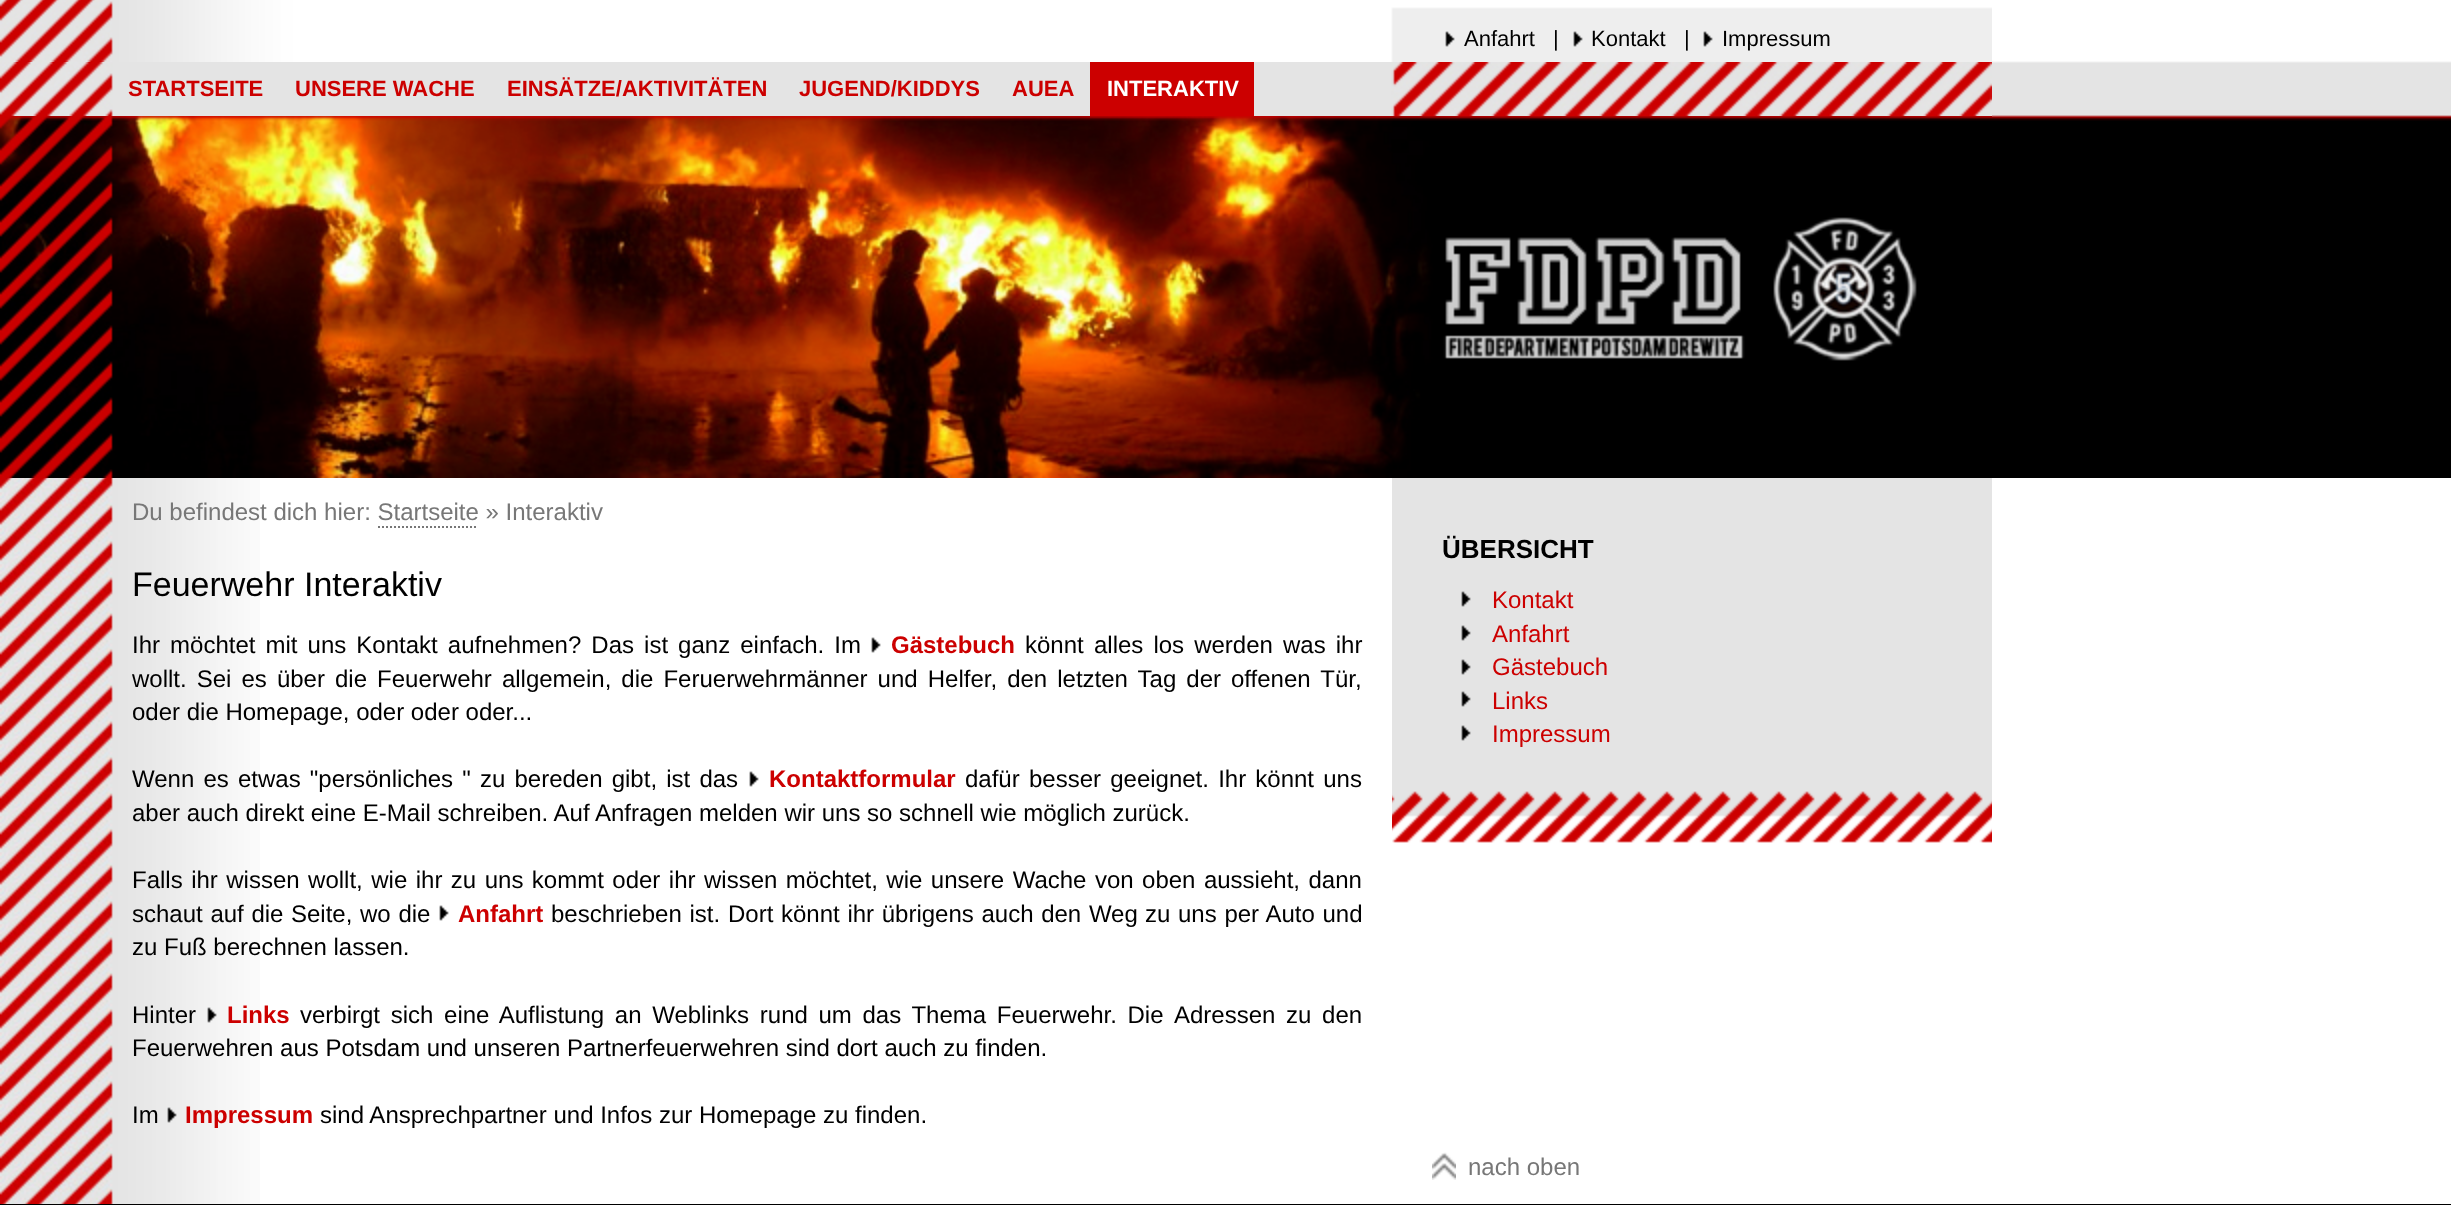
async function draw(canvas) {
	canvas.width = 2451;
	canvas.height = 1205;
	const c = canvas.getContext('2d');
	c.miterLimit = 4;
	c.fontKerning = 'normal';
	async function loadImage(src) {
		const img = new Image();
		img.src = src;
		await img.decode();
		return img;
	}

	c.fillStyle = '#fff';
	c.fillRect(0, 0, 2451, 1205);
	c.drawImage(await loadImage('img1.png'), 1992, 61, 459, 417);
	c.drawImage(await loadImage('img2.png'), 0, 0, 1992, 62);
	c.drawImage(await loadImage('img3.png'), 1445, 31, 10, 16);
	c.font = '22px Liberation Sans';
	c.fillStyle = '#000';
	c.fillText('Anfahrt', 1464, 46);
	c.fillText('|', 1553, 46);
	c.drawImage(await loadImage('img3.png'), 1573, 31, 10, 16);
	c.fillText('Kontakt', 1591, 46);
	c.fillText('|', 1684, 46);
	c.drawImage(await loadImage('img3.png'), 1703, 31, 10, 16);
	c.fillText('Impressum', 1722, 46);
	c.drawImage(await loadImage('img4.png'), 0, 62, 1992, 54);
	c.font = 'bold 22px Liberation Sans';
	c.fillStyle = '#c00';
	for (const [text, x, y] of [
		['STARTSEITE', 128, 96],
		['UNSERE WACHE', 295, 96],
		['EINSÄTZE/AKTIVITÄTEN', 507, 96],
		['JUGEND/KIDDYS', 799, 96],
		['AUEA', 1012, 96],
	]) {
		c.fillText(text, x, y);
	}
	c.fillRect(1090, 62, 164, 54);
	c.fillStyle = '#fff';
	c.fillText('INTERAKTIV', 1107, 96);
	c.drawImage(await loadImage('img5.png'), 0, 116, 1992, 362);
	c.drawImage(await loadImage('img6.png'), 0, 478, 260, 726);
	c.font = '24px Liberation Sans';
	c.fillStyle = '#777';
	c.fillText('Du befindest dich hier: Startseite » Interaktiv', 132, 520);
	c.beginPath();
	c.moveTo(378, 527);
	c.lineTo(478, 527);
	c.strokeStyle = '#777';
	c.lineWidth = 2;
	c.setLineDash([2, 2]);
	c.stroke();
	c.font = '34px Liberation Sans';
	c.fillStyle = '#000';
	c.fillText('Feuerwehr Interaktiv', 132, 596);
	c.wordSpacing = '3.4px';
	c.font = '24px Liberation Sans';
	c.fillText('Ihr möchtet mit uns Kontakt aufnehmen? Das ist ganz einfach. Im', 132, 653);
	c.drawImage(await loadImage('img7.png'), 871, 637, 10, 16);
	c.wordSpacing = '0px';
	c.font = 'bold 24px Liberation Sans';
	c.fillStyle = '#c00';
	c.fillText('Gästebuch', 891, 653);
	c.font = '24px Liberation Sans';
	c.fillStyle = '#000';
	c.fillText('könnt', 1025, 653);
	c.wordSpacing = '3.4px';
	for (const [text, x, y] of [
		['alles los werden was ihr', 1094, 653],
		['wollt. Sei es über die Feuerwehr allgemein, die Feruerwehrmänner und Helfer, den letzten Tag der', 132, 687],
		['offenen Tür,', 1231, 687],
	]) {
		c.fillText(text, x, y);
	}
	c.wordSpacing = '0px';
	c.fillText('oder die Homepage, oder oder oder...', 132, 720);
	c.wordSpacing = '2.5px';
	c.fillText('Wenn es etwas "persönliches " zu bereden gibt, ist das', 132, 787);
	c.drawImage(await loadImage('img7.png'), 749, 771, 10, 16);
	c.wordSpacing = '0px';
	c.font = 'bold 24px Liberation Sans';
	c.fillStyle = '#c00';
	c.fillText('Kontaktformular', 769, 787);
	c.font = '24px Liberation Sans';
	c.fillStyle = '#000';
	c.fillText('dafür', 965, 787);
	c.wordSpacing = '2.5px';
	c.fillText('besser geeignet. Ihr könnt uns', 1029, 787);
	c.wordSpacing = '0px';
	c.fillText('aber auch direkt eine E-Mail schreiben. Auf Anfragen melden wir uns so schnell wie möglich zurück.', 132, 821);
	c.wordSpacing = '1.8px';
	c.fillText('Falls ihr wissen wollt, wie ihr zu uns kommt oder ihr wissen möchtet, wie unsere Wache von oben aussieht, dann', 132, 888);
	c.wordSpacing = '1px';
	c.fillText('schaut auf die', 132, 922);
	c.fillText('Seite, wo die', 291, 922);
	c.drawImage(await loadImage('img7.png'), 439, 905, 10, 16);
	c.wordSpacing = '0px';
	c.font = 'bold 24px Liberation Sans';
	c.fillStyle = '#c00';
	c.fillText('Anfahrt', 458, 922);
	c.wordSpacing = '1px';
	c.font = '24px Liberation Sans';
	c.fillStyle = '#000';
	for (const [text, x, y] of [
		['beschrieben ist.', 551, 922],
		['Dort könnt ihr übrigens auch den Weg', 728, 922],
		['zu uns per Auto und', 1145, 922],
	]) {
		c.fillText(text, x, y);
	}
	c.wordSpacing = '0px';
	c.fillText('zu Fuß berechnen lassen.', 132, 955);
	c.fillText('Hinter', 132, 1023);
	c.drawImage(await loadImage('img8.png'), 207, 1007, 10, 16);
	c.font = 'bold 24px Liberation Sans';
	c.fillStyle = '#c00';
	c.fillText('Links', 227, 1023);
	c.wordSpacing = '4px';
	c.font = '24px Liberation Sans';
	c.fillStyle = '#000';
	c.fillText('verbirgt sich eine Auflistung an Weblinks rund um das Thema Feuerwehr. Die', 300, 1023);
	c.fillText('Adressen zu den', 1174, 1023);
	c.wordSpacing = '0px';
	c.fillText('Feuerwehren aus Potsdam und unseren Partnerfeuerwehren sind dort auch zu finden.', 132, 1056);
	c.fillText('Im', 132, 1123);
	c.drawImage(await loadImage('img9.png'), 167, 1107, 10, 16);
	c.font = 'bold 24px Liberation Sans';
	c.fillStyle = '#c00';
	c.fillText('Impressum', 185, 1123);
	c.font = '24px Liberation Sans';
	c.fillStyle = '#000';
	c.fillText('sind Ansprechpartner und Infos zur Homepage zu finden.', 320, 1123);
	c.fillStyle = '#e4e4e4';
	c.fillRect(1392, 478, 600, 313);
	c.drawImage(await loadImage('img10.png'), 1392, 791, 600, 61);
	c.font = 'bold 26px Liberation Sans';
	c.fillStyle = '#000';
	c.fillText('ÜBERSICHT', 1442, 558);
	c.drawImage(await loadImage('img11.png'), 1461, 591, 10, 16);
	c.font = '24px Liberation Sans';
	c.fillStyle = '#c00';
	c.fillText('Kontakt', 1492, 608);
	c.drawImage(await loadImage('img11.png'), 1461, 625, 10, 16);
	c.fillText('Anfahrt', 1492, 642);
	c.drawImage(await loadImage('img11.png'), 1461, 659, 10, 16);
	c.fillText('Gästebuch', 1492, 675);
	c.drawImage(await loadImage('img11.png'), 1461, 691, 10, 16);
	c.fillText('Links', 1492, 709);
	c.drawImage(await loadImage('img11.png'), 1461, 725, 10, 16);
	c.fillText('Impressum', 1492, 742);
	c.drawImage(await loadImage('img12.png'), 1432, 1152, 24, 28);
	c.fillStyle = '#777';
	c.fillText('nach oben', 1468, 1175);
	c.fillStyle = '#000';
	c.fillRect(0, 1204, 2451, 1);
}

draw(document.querySelector('canvas'));
